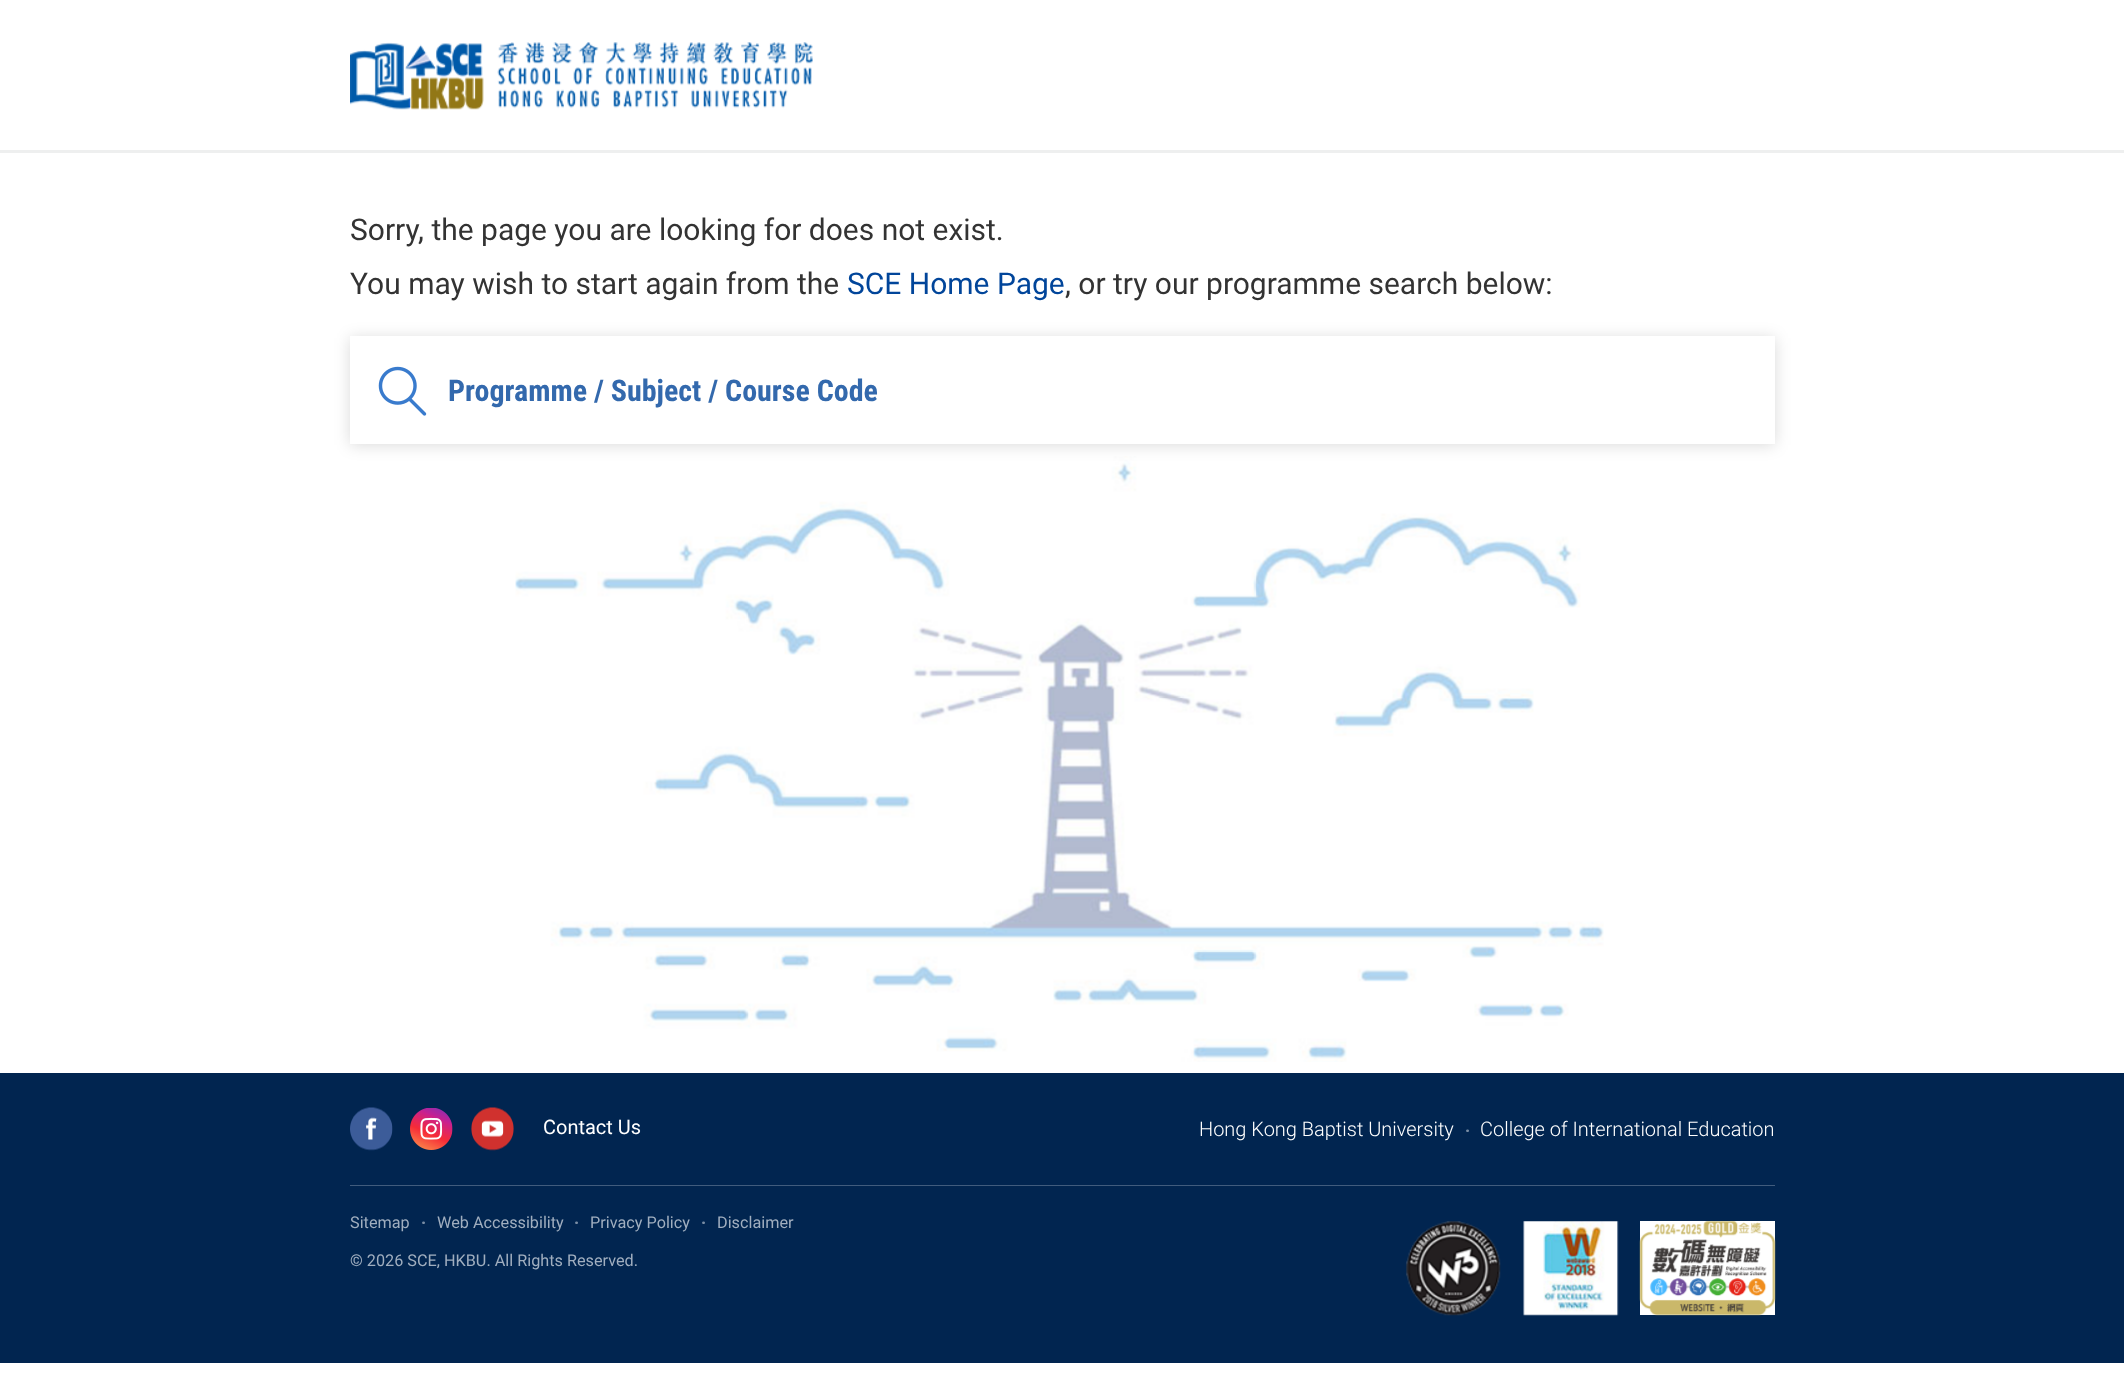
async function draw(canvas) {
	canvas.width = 2124;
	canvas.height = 1393;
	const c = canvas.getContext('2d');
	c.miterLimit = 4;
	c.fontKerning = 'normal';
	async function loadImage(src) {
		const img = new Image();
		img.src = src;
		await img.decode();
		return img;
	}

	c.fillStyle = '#fff';
	c.fillRect(0, 0, 2124, 1393);
	c.drawImage(await loadImage('img1.png'), 350, 42, 463, 68);
	c.fillStyle = '#eeefef';
	c.fillRect(0, 150, 2124, 3);
	c.font = '30px Roboto';
	c.fillStyle = '#333';
	c.fillText('Sorry, the page you are looking for does not exist.', 350, 240);
	c.fillText('You may wish to start again from the', 350, 294);
	c.fillStyle = '#01459a';
	c.fillText('SCE Home Page', 847, 294);
	c.fillStyle = '#333';
	c.fillText(', or try our programme search below:', 1065, 294);
	c.drawImage(await loadImage('img3.png'), 515, 456, 1089, 606);
	c.save();
	c.beginPath();
	c.moveTo(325, 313);
	c.lineTo(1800, 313);
	c.lineTo(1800, 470);
	c.lineTo(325, 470);
	c.closePath();
	c.moveTo(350, 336);
	c.lineTo(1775, 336);
	c.lineTo(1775, 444);
	c.lineTo(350, 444);
	c.closePath();
	c.clip('evenodd');
	c.fillStyle = '#00000026';
	c.filter = 'blur(8px)';
	c.beginPath();
	c.rect(350, 338, 1425, 107);
	c.fill();
	c.filter = 'none';
	c.restore();
	c.fillStyle = '#ffffffcc';
	c.fillRect(352, 336, 1421, 108);
	c.drawImage(await loadImage('img2.png'), 378, 366, 49, 50);
	c.font = 'bold 30px Roboto Condensed';
	c.fillStyle = '#3369ad';
	c.fillText('Programme / Subject / Course Code', 448, 401);
	c.fillStyle = '#012550';
	c.fillRect(0, 1073, 2124, 290);
	c.fillStyle = '#415c7d';
	c.fillRect(350, 1185, 1425, 1);
	c.drawImage(await loadImage('img4.png'), 350, 1107, 43, 44);
	c.drawImage(await loadImage('img5.png'), 410, 1108, 43, 42);
	c.drawImage(await loadImage('img6.png'), 471, 1107, 43, 44);
	c.font = '20px Roboto';
	c.fillStyle = '#fff';
	c.fillText('Contact Us', 543, 1134);
	c.font = '300 20px Roboto';
	c.fillText('Hong Kong Baptist University', 1199, 1136);
	c.font = 'bold 18px Roboto';
	c.fillStyle = '#7a8da4';
	c.fillText('.', 1465, 1132);
	c.font = '300 20px Roboto';
	c.fillStyle = '#fff';
	c.fillText('College of International Education', 1480, 1136);
	c.font = '16.25px Roboto';
	c.fillStyle = '#a0aebf';
	c.fillText('Sitemap', 350, 1228);
	c.font = 'bold 18px Roboto';
	c.fillStyle = '#7a8da4';
	c.fillText('.', 421, 1224);
	c.font = '16.25px Roboto';
	c.fillStyle = '#a0aebf';
	c.fillText('Web Accessibility', 437, 1228);
	c.font = 'bold 18px Roboto';
	c.fillStyle = '#7a8da4';
	c.fillText('.', 574, 1224);
	c.font = '16.25px Roboto';
	c.fillStyle = '#a0aebf';
	c.fillText('Privacy Policy', 590, 1228);
	c.font = 'bold 18px Roboto';
	c.fillStyle = '#7a8da4';
	c.fillText('.', 701, 1224);
	c.font = '16.25px Roboto';
	c.fillStyle = '#a0aebf';
	c.fillText('Disclaimer', 717, 1228);
	c.fillText('© 2026 SCE, HKBU. All Rights Reserved.', 350, 1266);
	c.drawImage(await loadImage('img7.png'), 1406, 1221, 95, 95);
	c.drawImage(await loadImage('img8.png'), 1523, 1221, 96, 95);
	c.fillStyle = '#fff';
	c.fillRect(1640, 1221, 135, 94);
	c.drawImage(await loadImage('img9.png'), 1639, 1221, 137, 95);
}

draw(document.querySelector('canvas'));
